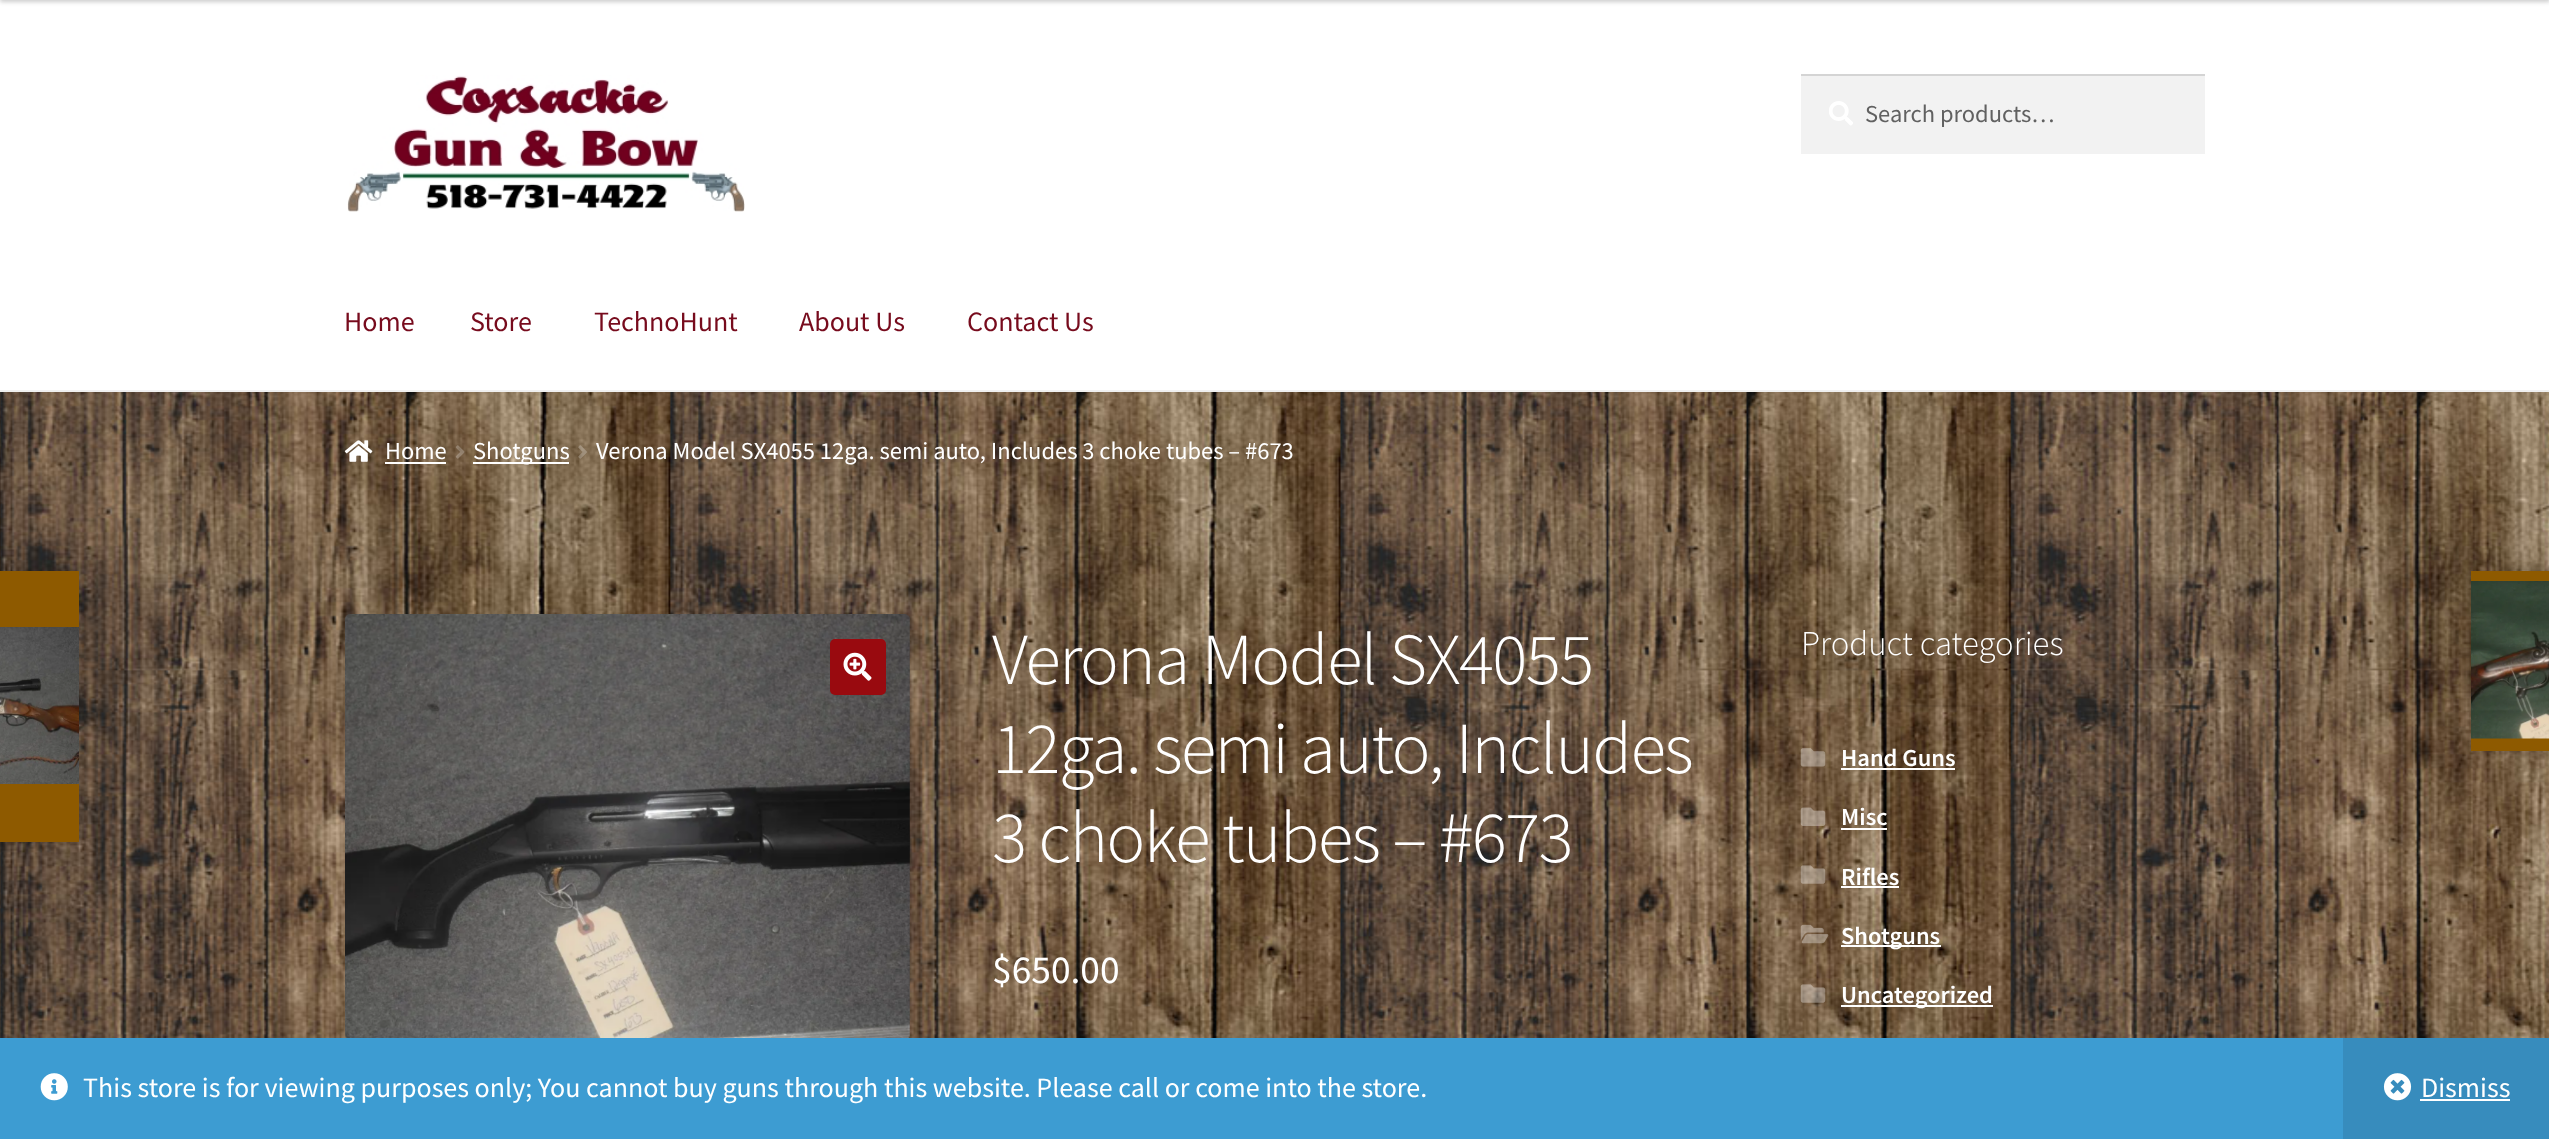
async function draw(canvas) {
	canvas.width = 2549;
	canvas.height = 1139;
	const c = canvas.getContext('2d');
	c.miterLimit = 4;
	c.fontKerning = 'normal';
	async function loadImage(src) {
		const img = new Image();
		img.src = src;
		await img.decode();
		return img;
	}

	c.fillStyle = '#fff';
	c.fillRect(0, 0, 2549, 1139);
	c.drawImage(await loadImage('img1.png'), 0, 392, 2549, 646);
	c.fillStyle = '#00000033';
	c.filter = 'blur(2px)';
	c.beginPath();
	c.rect(0, -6, 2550, 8);
	c.fill();
	c.filter = 'none';
	c.fillStyle = '#f0f0f0';
	c.fillRect(0, 390, 2549, 2);
	c.drawImage(await loadImage('img2.png'), 347, 75, 398, 137);
	c.fillStyle = '#f2f2f2';
	c.fillRect(1801, 76, 404, 78);
	c.drawImage(await loadImage('img3.png'), 1829, 101, 24, 25);
	c.fillStyle = '#d4d4d4';
	c.fillRect(1801, 74, 404, 2);
	c.font = '24.5px Source Sans Pro';
	c.fillStyle = '#616161';
	c.fillText('Search products…', 1865, 122);
	c.font = '28px Source Sans Pro';
	c.fillStyle = '#770b1d';
	for (const [text, x, y] of [
		['Home', 344, 331],
		['Store', 470, 331],
		['TechnoHunt', 594, 331],
		['About Us', 799, 331],
		['Contact Us', 967, 331],
	]) {
		c.fillText(text, x, y);
	}
	c.drawImage(await loadImage('img4.png'), 344, 440, 29, 22);
	c.font = '24.5px Source Sans Pro';
	c.fillStyle = '#fff';
	c.fillText('Home', 385, 459);
	c.fillRect(385, 462, 61, 2);
	c.drawImage(await loadImage('img5.png'), 455, 445, 10, 14);
	c.fillRect(473, 462, 96, 2);
	c.fillText('Shotguns', 473, 459);
	c.drawImage(await loadImage('img6.png'), 578, 445, 9, 14);
	c.fillText('Verona Model SX4055 12ga. semi auto, Includes 3 choke tubes – #673', 596, 459);
	c.fillStyle = '#00000033';
	c.filter = 'blur(4.5px)';
	c.beginPath();
	c.rect(-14, 571, 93, 271);
	c.fill();
	c.filter = 'none';
	c.fillStyle = '#8e5a00';
	c.fillRect(0, 571, 79, 271);
	c.drawImage(await loadImage('img7.png'), 0, 627, 79, 157);
	c.fillStyle = '#00000033';
	c.filter = 'blur(4.5px)';
	c.beginPath();
	c.rect(2471, 571, 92, 180);
	c.fill();
	c.filter = 'none';
	c.fillStyle = '#8e5a00';
	c.fillRect(2471, 571, 78, 180);
	c.drawImage(await loadImage('img8.png'), 2471, 581, 78, 158);
	c.drawImage(await loadImage('img9.png'), 345, 614, 565, 424);
	c.fillStyle = '#990a0f';
	c.beginPath();
	c.roundRect(830, 639, 56, 56, 5);
	c.fill();
	c.drawImage(await loadImage('img10.png'), 843, 652, 29, 29);
	c.letterSpacing = '-1.75px';
	c.font = '300 73.25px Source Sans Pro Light';
	c.fillStyle = '#fff';
	for (const [text, x, y] of [
		['Verona Model SX4055', 992, 684],
		['12ga. semi auto, Includes', 992, 773],
		['3 choke tubes – #673', 992, 862],
	]) {
		c.fillText(text, x, y);
	}
	c.letterSpacing = '0px';
	c.font = '39.5px Source Sans Pro';
	c.fillText('$650.00', 992, 983);
	c.fillStyle = '#0000000d';
	c.fillRect(1801, 705, 404, 2);
	c.font = '300 34.75px Source Sans Pro Light';
	c.fillStyle = '#fff';
	c.fillText('Product categories', 1801, 655);
	c.drawImage(await loadImage('img11.png'), 1800, 748, 26, 19);
	c.font = '600 24.5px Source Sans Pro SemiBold';
	c.fillText('Hand Guns', 1841, 766);
	c.fillRect(1841, 768, 114, 2);
	c.drawImage(await loadImage('img12.png'), 1800, 807, 26, 19);
	c.fillText('Misc', 1841, 825);
	c.fillRect(1841, 828, 46, 2);
	c.drawImage(await loadImage('img13.png'), 1800, 865, 26, 19);
	c.fillText('Rifles', 1841, 885);
	c.fillRect(1841, 886, 58, 2);
	c.drawImage(await loadImage('img14.png'), 1800, 924, 29, 20);
	c.fillRect(1841, 945, 100, 2);
	c.fillText('Shotguns', 1841, 944);
	c.drawImage(await loadImage('img15.png'), 1800, 984, 26, 19);
	c.fillRect(1841, 1005, 152, 2);
	c.fillText('Uncategorized', 1841, 1003);
	c.fillStyle = '#3d9cd2';
	c.fillRect(0, 1038, 2343, 101);
	c.drawImage(await loadImage('img16.png'), 40, 1073, 28, 28);
	c.font = '28px Source Sans Pro';
	c.fillStyle = '#fff';
	c.fillText('This store is for viewing purposes only; You cannot buy guns through this website. Please call or come into the store.', 83, 1097);
	c.fillStyle = '#378cbd';
	c.fillRect(2343, 1038, 206, 101);
	c.drawImage(await loadImage('img17.png'), 2383, 1073, 29, 28);
	c.fillStyle = '#fff';
	c.fillText('Dismiss', 2421, 1097);
	c.fillRect(2420, 1099, 90, 2);
}

draw(document.querySelector('canvas'));
